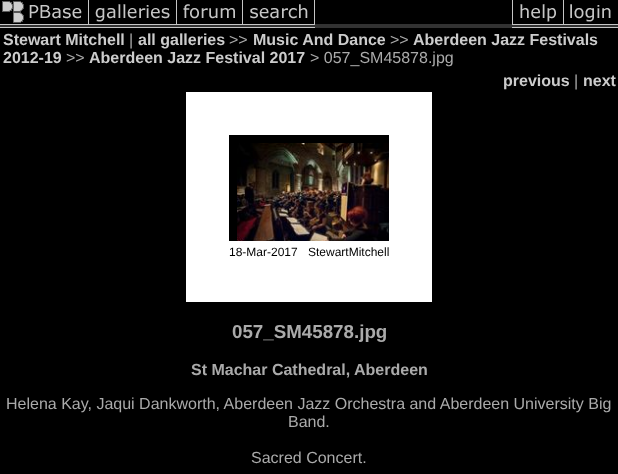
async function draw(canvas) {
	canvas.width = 618;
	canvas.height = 474;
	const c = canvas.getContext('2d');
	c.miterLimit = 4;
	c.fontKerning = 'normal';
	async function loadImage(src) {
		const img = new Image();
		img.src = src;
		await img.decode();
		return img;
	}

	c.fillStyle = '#000';
	c.fillRect(0, 0, 618, 474);
	c.drawImage(await loadImage('img1.png'), 0, 0, 89, 28);
	c.drawImage(await loadImage('img2.png'), 89, 0, 88, 28);
	c.drawImage(await loadImage('img3.png'), 177, 0, 66, 28);
	c.drawImage(await loadImage('img4.png'), 243, 0, 72, 28);
	c.fillStyle = '#323232';
	c.fillRect(315, 24, 197, 4);
	c.drawImage(await loadImage('img5.png'), 512, 0, 52, 28);
	c.drawImage(await loadImage('img6.png'), 564, 4, 54, 24);
	c.font = 'bold 16px Liberation Sans';
	c.fillStyle = '#ccc';
	c.fillText('Stewart Mitchell', 3, 45);
	c.font = '16px Liberation Sans';
	c.fillStyle = '#aaa';
	c.fillText('|', 129, 45);
	c.font = 'bold 16px Liberation Sans';
	c.fillStyle = '#ccc';
	c.fillText('all galleries', 138, 45);
	c.font = '16px Liberation Sans';
	c.fillStyle = '#aaa';
	c.fillText('>>', 229, 45);
	c.font = 'bold 16px Liberation Sans';
	c.fillStyle = '#ccc';
	c.fillText('Music And Dance', 253, 45);
	c.font = '16px Liberation Sans';
	c.fillStyle = '#aaa';
	c.fillText('>>', 390, 45);
	c.font = 'bold 16px Liberation Sans';
	c.fillStyle = '#ccc';
	c.fillText('Aberdeen Jazz Festivals', 413, 45);
	c.fillText('2012-19', 3, 63);
	c.font = '16px Liberation Sans';
	c.fillStyle = '#aaa';
	c.fillText('>>', 66, 63);
	c.font = 'bold 16px Liberation Sans';
	c.fillStyle = '#ccc';
	c.fillText('Aberdeen Jazz Festival 2017', 89, 63);
	c.font = '16px Liberation Sans';
	c.fillStyle = '#aaa';
	c.fillText('> 057_SM45878.jpg', 310, 63);
	c.font = 'bold 16px Liberation Sans';
	c.fillStyle = '#ccc';
	c.fillText('previous', 503, 86);
	c.font = '16px Liberation Sans';
	c.fillStyle = '#aaa';
	c.fillText('|', 574, 86);
	c.font = 'bold 16px Liberation Sans';
	c.fillStyle = '#ccc';
	c.fillText('next', 583, 86);
	c.fillStyle = '#fff';
	c.fillRect(186, 92, 246, 210);
	c.save();
	c.beginPath();
	c.rect(229, 135, 160, 106);
	c.clip();
	c.strokeStyle = '#000';
	c.lineWidth = 8;
	c.strokeRect(233, 139, 165, 112);
	c.restore();
	c.drawImage(await loadImage('img7.png'), 237, 143, 152, 98);
	c.font = '12px Liberation Sans';
	c.fillStyle = '#000';
	c.fillText('18-Mar-2017', 229, 256);
	c.fillText('StewartMitchell', 308, 256);
	c.font = 'bold 18.75px Liberation Sans';
	c.fillStyle = '#aaa';
	c.fillText('057_SM45878.jpg', 232, 338);
	c.font = 'bold 16px Liberation Sans';
	c.fillText('St Machar Cathedral, Aberdeen', 191, 375);
	c.font = '16px Liberation Sans';
	for (const [text, x, y] of [
		['Helena Kay, Jaqui Dankworth, Aberdeen Jazz Orchestra and Aberdeen University Big', 6, 409],
		['Band.', 288, 427],
		['Sacred Concert.', 251, 463],
	]) {
		c.fillText(text, x, y);
	}
}

draw(document.querySelector('canvas'));
